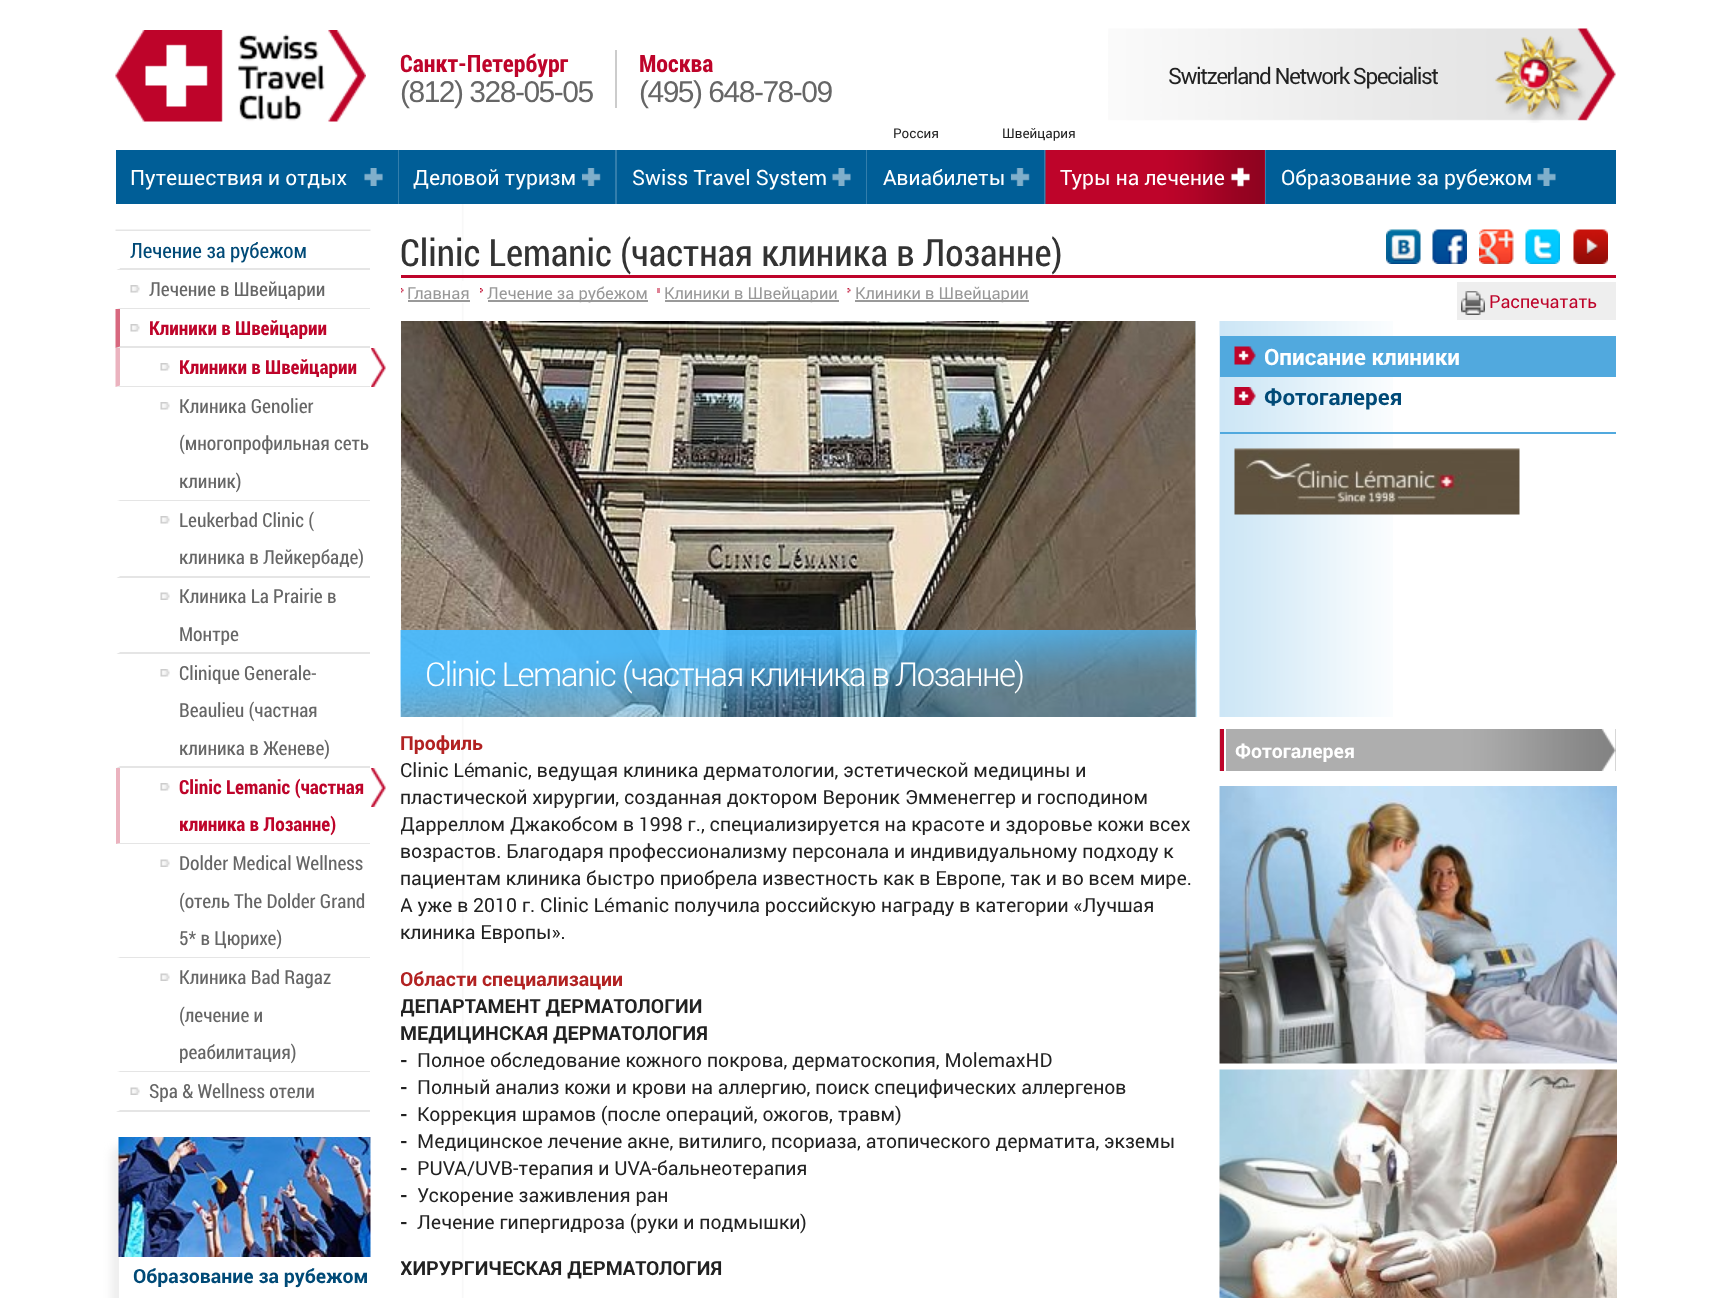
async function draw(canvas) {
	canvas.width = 1729;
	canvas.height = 1298;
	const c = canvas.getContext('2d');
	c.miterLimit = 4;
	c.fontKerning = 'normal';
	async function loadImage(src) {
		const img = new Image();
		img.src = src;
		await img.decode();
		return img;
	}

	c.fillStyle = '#fff';
	c.fillRect(0, 0, 1729, 1298);
	c.drawImage(await loadImage('img1.png'), 401, 204, 63, 1094);
	c.drawImage(await loadImage('img2.png'), 1108, 28, 508, 95);
	c.drawImage(await loadImage('img3.png'), 115, 30, 251, 92);
	c.fillStyle = '#ccc';
	c.fillRect(615, 50, 2, 58);
	c.font = 'bold 24px Roboto Condensed';
	c.fillStyle = '#be042a';
	c.fillText('Санкт-Петербург', 400, 72);
	c.letterSpacing = '-1.5px';
	c.font = '30px Liberation Sans';
	c.fillStyle = '#666';
	c.fillText('(812) 328-05-05', 400, 102);
	c.letterSpacing = '0px';
	c.font = 'bold 24px Roboto Condensed';
	c.fillStyle = '#be042a';
	c.fillText('Москва', 639, 72);
	c.letterSpacing = '-1.5px';
	c.font = '30px Liberation Sans';
	c.fillStyle = '#666';
	c.fillText('(495) 648-78-09', 639, 102);
	c.font = '22.5px Roboto';
	c.fillStyle = '#222';
	c.fillText('Switzerland Network Specialist', 1168, 84);
	c.letterSpacing = '0px';
	c.font = '13.5px Roboto';
	c.fillText('Россия', 893, 138);
	c.fillText('Швейцария', 1002, 138);
	c.fillStyle = '#005e97';
	c.fillRect(116, 150, 1500, 54);
	c.drawImage(await loadImage('img4.png'), 364, 168, 19, 18);
	c.fillStyle = '#337eac';
	c.fillRect(398, 150, 1, 54);
	c.font = '21px Roboto';
	c.fillStyle = '#fff';
	c.fillText('Путешествия и отдых', 130, 185);
	c.drawImage(await loadImage('img5.png'), 582, 168, 19, 18);
	c.fillStyle = '#337eac';
	c.fillRect(615, 150, 2, 54);
	c.fillStyle = '#fff';
	c.fillText('Деловой туризм', 413, 185);
	c.drawImage(await loadImage('img6.png'), 832, 168, 19, 18);
	c.fillStyle = '#337eac';
	c.fillRect(866, 150, 1, 54);
	c.fillStyle = '#fff';
	c.fillText('Swiss Travel System', 632, 185);
	c.drawImage(await loadImage('img5.png'), 1011, 168, 19, 18);
	c.fillStyle = '#337eac';
	c.fillRect(1044, 150, 2, 54);
	c.fillStyle = '#fff';
	c.fillText('Авиабилеты', 883, 185);
	c.fillStyle = '#be042a';
	c.fillRect(1264, 150, 1, 54);
	c.drawImage(await loadImage('img7.png'), 1045, 150, 220, 54);
	c.fillStyle = '#337eac';
	c.fillRect(1265, 150, 1, 54);
	c.fillStyle = '#fff';
	c.fillText('Туры на лечение', 1060, 185);
	c.drawImage(await loadImage('img6.png'), 1537, 168, 19, 18);
	c.fillText('Образование за рубежом', 1281, 185);
	c.font = '19.5px Roboto';
	c.fillStyle = '#222';
	for (const [text, x, y] of [
		['Clinic L', 400, 777],
		['Дарреллом Джакобсом в 1998 г., специализируется на красоте и здоровье кожи всех', 400, 831],
		['А уже в 2010 г. Clinic L', 400, 912],
	]) {
		c.fillText(text, x, y);
	}
	c.font = 'bold 19.5px Roboto';
	c.fillStyle = '#b22222';
	c.fillText('Области специализации', 400, 986);
	c.fillStyle = '#222';
	for (const [text, x, y] of [
		['ДЕПАРТАМЕНТ ДЕРМАТОЛОГИИ', 400, 1013],
		['-', 400, 1067],
		['-', 400, 1094],
		['-', 400, 1121],
		['-', 400, 1148],
		['-', 400, 1175],
		['-', 400, 1202],
		['-', 400, 1229],
		['ХИРУРГИЧЕСКАЯ ДЕРМАТОЛОГИЯ', 400, 1275],
	]) {
		c.fillText(text, x, y);
	}
	c.fillStyle = '#fff';
	c.fillRect(400, 767, 1, 508);
	c.drawImage(await loadImage('img8.png'), 115, 229, 256, 2);
	c.fillStyle = '#e5e5e5';
	c.beginPath();
	c.moveTo(370, 270);
	c.lineTo(116, 270);
	c.lineTo(120, 268);
	c.lineTo(370, 268);
	c.closePath();
	c.fill();
	c.fillStyle = '#fff';
	c.beginPath();
	c.moveTo(115.5, 270);
	c.lineTo(115.5, 231);
	c.lineTo(120, 231);
	c.lineTo(120, 268.5);
	c.closePath();
	c.fill();
	c.font = '21px Roboto Condensed';
	c.fillStyle = '#004a77';
	c.fillText('Лечение за рубежом', 130, 258);
	c.drawImage(await loadImage('img9.png'), 130, 285, 10, 8);
	c.fillStyle = '#e5e5e5';
	c.beginPath();
	c.moveTo(370, 309);
	c.lineTo(116, 309);
	c.lineTo(120, 308);
	c.lineTo(370, 308);
	c.closePath();
	c.fill();
	c.fillStyle = '#fff';
	c.beginPath();
	c.moveTo(115.5, 309);
	c.lineTo(115.5, 270);
	c.lineTo(120, 270);
	c.lineTo(120, 307.5);
	c.closePath();
	c.fill();
	c.font = '19.5px Roboto Condensed';
	c.fillStyle = '#666';
	c.fillText('Лечение в Швейцарии', 149, 296);
	c.drawImage(await loadImage('img9.png'), 130, 324, 10, 8);
	c.fillStyle = '#e5e5e5';
	c.beginPath();
	c.moveTo(370, 348);
	c.lineTo(116, 348);
	c.lineTo(120, 346);
	c.lineTo(370, 346);
	c.closePath();
	c.fill();
	c.fillStyle = '#d8687f';
	c.beginPath();
	c.moveTo(115.5, 348);
	c.lineTo(115.5, 309);
	c.lineTo(120, 309);
	c.lineTo(120, 346.5);
	c.closePath();
	c.fill();
	c.font = 'bold 19.5px Roboto Condensed';
	c.fillStyle = '#be042a';
	c.fillText('Клиники в Швейцарии', 149, 335);
	c.drawImage(await loadImage('img10.png'), 371, 348, 15, 39);
	c.drawImage(await loadImage('img9.png'), 160, 363, 10, 8);
	c.fillStyle = '#e5e5e5';
	c.beginPath();
	c.moveTo(370, 387);
	c.lineTo(116, 387);
	c.lineTo(120, 386);
	c.lineTo(370, 386);
	c.closePath();
	c.fill();
	c.fillStyle = '#ebb3bf';
	c.beginPath();
	c.moveTo(115.5, 387);
	c.lineTo(115.5, 348);
	c.lineTo(120, 348);
	c.lineTo(120, 385.5);
	c.closePath();
	c.fill();
	c.fillStyle = '#be042a';
	c.fillText('Клиники в Швейцарии', 179, 374);
	c.drawImage(await loadImage('img9.png'), 160, 402, 10, 8);
	c.fillStyle = '#e5e5e5';
	c.beginPath();
	c.moveTo(370, 501);
	c.lineTo(116, 501);
	c.lineTo(120, 500);
	c.lineTo(370, 500);
	c.closePath();
	c.fill();
	c.fillStyle = '#fff';
	c.beginPath();
	c.moveTo(116, 501);
	c.lineTo(116, 387);
	c.lineTo(120, 387);
	c.lineTo(120, 500);
	c.closePath();
	c.fill();
	c.font = '19.5px Roboto Condensed';
	c.fillStyle = '#666';
	for (const [text, x, y] of [
		['Клиника Genolier', 179, 413],
		['(многопрофильная сеть', 179, 450],
		['клиник)', 179, 488],
	]) {
		c.fillText(text, x, y);
	}
	c.drawImage(await loadImage('img9.png'), 160, 516, 10, 8);
	c.fillStyle = '#e5e5e5';
	c.beginPath();
	c.moveTo(370, 578);
	c.lineTo(116, 578);
	c.lineTo(120, 576);
	c.lineTo(370, 576);
	c.closePath();
	c.fill();
	c.fillStyle = '#fff';
	c.beginPath();
	c.moveTo(116, 578);
	c.lineTo(116, 501);
	c.lineTo(120, 501);
	c.lineTo(120, 576);
	c.closePath();
	c.fill();
	c.fillStyle = '#666';
	c.fillText('Leukerbad Clinic (', 179, 527);
	c.fillText('клиника в Лейкербаде)', 179, 564);
	c.drawImage(await loadImage('img11.png'), 160, 592, 10, 8);
	c.fillStyle = '#e5e5e5';
	c.beginPath();
	c.moveTo(370, 654);
	c.lineTo(116, 654);
	c.lineTo(120, 652);
	c.lineTo(370, 652);
	c.closePath();
	c.fill();
	c.fillStyle = '#fff';
	c.beginPath();
	c.moveTo(116, 654);
	c.lineTo(116, 578);
	c.lineTo(120, 578);
	c.lineTo(120, 652);
	c.closePath();
	c.fill();
	c.fillStyle = '#666';
	c.fillText('Клиника La Prairie в', 179, 603);
	c.fillText('Монтре', 179, 641);
	c.drawImage(await loadImage('img9.png'), 160, 669, 10, 8);
	c.fillStyle = '#e5e5e5';
	c.beginPath();
	c.moveTo(370, 768);
	c.lineTo(116, 768);
	c.lineTo(120, 766);
	c.lineTo(370, 766);
	c.closePath();
	c.fill();
	c.fillStyle = '#fff';
	c.beginPath();
	c.moveTo(116, 768);
	c.lineTo(116, 654);
	c.lineTo(120, 654);
	c.lineTo(120, 766);
	c.closePath();
	c.fill();
	c.fillStyle = '#666';
	for (const [text, x, y] of [
		['Clinique Generale-', 179, 680],
		['Beaulieu (частная', 179, 717],
		['клиника в Женеве)', 179, 755],
	]) {
		c.fillText(text, x, y);
	}
	c.drawImage(await loadImage('img10.png'), 371, 768, 15, 39);
	c.drawImage(await loadImage('img9.png'), 160, 783, 10, 8);
	c.fillStyle = '#e5e5e5';
	c.beginPath();
	c.moveTo(370, 844);
	c.lineTo(116, 844);
	c.lineTo(120, 843);
	c.lineTo(370, 843);
	c.closePath();
	c.fill();
	c.fillStyle = '#ebb3bf';
	c.beginPath();
	c.moveTo(116, 844);
	c.lineTo(116, 768);
	c.lineTo(120, 768);
	c.lineTo(120, 843);
	c.closePath();
	c.fill();
	c.font = 'bold 19.5px Roboto Condensed';
	c.fillStyle = '#be042a';
	c.fillText('Clinic Lemanic (частная', 179, 794);
	c.fillText('клиника в Лозанне)', 179, 831);
	c.drawImage(await loadImage('img11.png'), 160, 859, 10, 8);
	c.fillStyle = '#e5e5e5';
	c.beginPath();
	c.moveTo(370, 958);
	c.lineTo(116, 958);
	c.lineTo(120, 957);
	c.lineTo(370, 957);
	c.closePath();
	c.fill();
	c.fillStyle = '#fff';
	c.beginPath();
	c.moveTo(116, 958);
	c.lineTo(116, 844);
	c.lineTo(120, 844);
	c.lineTo(120, 957);
	c.closePath();
	c.fill();
	c.font = '19.5px Roboto Condensed';
	c.fillStyle = '#666';
	for (const [text, x, y] of [
		['Dolder Medical Wellness', 179, 870],
		['(отель The Dolder Grand', 179, 908],
		['5* в Цюрихе)', 179, 945],
	]) {
		c.fillText(text, x, y);
	}
	c.drawImage(await loadImage('img11.png'), 160, 973, 10, 8);
	c.fillStyle = '#e5e5e5';
	c.beginPath();
	c.moveTo(370, 1072);
	c.lineTo(116, 1072);
	c.lineTo(120, 1071);
	c.lineTo(370, 1071);
	c.closePath();
	c.fill();
	c.fillStyle = '#fff';
	c.beginPath();
	c.moveTo(116, 1072);
	c.lineTo(116, 958);
	c.lineTo(120, 958);
	c.lineTo(120, 1071);
	c.closePath();
	c.fill();
	c.fillStyle = '#666';
	for (const [text, x, y] of [
		['Клиника Bad Ragaz', 179, 984],
		['(лечение и', 179, 1022],
		['реабилитация)', 179, 1059],
	]) {
		c.fillText(text, x, y);
	}
	c.drawImage(await loadImage('img11.png'), 130, 1087, 10, 8);
	c.fillStyle = '#e5e5e5';
	c.beginPath();
	c.moveTo(370, 1112);
	c.lineTo(116, 1112);
	c.lineTo(120, 1110);
	c.lineTo(370, 1110);
	c.closePath();
	c.fill();
	c.fillStyle = '#fff';
	c.beginPath();
	c.moveTo(115.5, 1111.5);
	c.lineTo(115.5, 1072.5);
	c.lineTo(120, 1072.5);
	c.lineTo(120, 1110);
	c.closePath();
	c.fill();
	c.fillStyle = '#666';
	c.fillText('Spa & Wellness отели', 149, 1098);
	c.save();
	c.beginPath();
	c.rect(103, 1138, 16, 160);
	c.clip();
	c.fillStyle = '#eee';
	c.filter = 'blur(4px)';
	c.beginPath();
	c.roundRect(111, 1145, 252, 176, 11);
	c.fill();
	c.filter = 'none';
	c.restore();
	c.drawImage(await loadImage('img12.png'), 118, 1137, 253, 120);
	c.font = 'bold 19.5px Roboto';
	c.fillStyle = '#004a77';
	c.fillText('Образование за рубежом', 133, 1283);
	c.fillStyle = '#be042a';
	c.fillRect(401, 275, 1215, 3);
	c.font = '37.5px Roboto Condensed';
	c.fillStyle = '#333';
	c.fillText('Clinic Lemanic (частная клиника в Лозанне)', 400, 266);
	c.drawImage(await loadImage('img13.png'), 1386, 229, 35, 35);
	c.drawImage(await loadImage('img14.png'), 1432, 229, 35, 35);
	c.drawImage(await loadImage('img15.png'), 1479, 229, 35, 35);
	c.drawImage(await loadImage('img16.png'), 1525, 229, 35, 35);
	c.drawImage(await loadImage('img17.png'), 1573, 229, 35, 35);
	c.drawImage(await loadImage('img18.png'), 401, 288, 3, 5);
	c.fillStyle = '#fff';
	c.fillRect(462, 281, 2, 22);
	c.font = '16.5px Roboto';
	c.fillStyle = '#999';
	c.fillText('Главная', 407, 299);
	c.fillRect(408, 300, 62, 2);
	c.drawImage(await loadImage('img19.png'), 480, 288, 3, 5);
	c.fillRect(488, 300, 160, 2);
	c.fillText('Лечение за рубежом', 487, 299);
	c.fillRect(665, 300, 174, 2);
	c.fillText('Клиники в Швейцарии', 664, 299);
	c.fillStyle = '#df8295';
	c.fillRect(657, 288, 3, 5);
	c.drawImage(await loadImage('img20.png'), 847, 288, 4, 5);
	c.fillStyle = '#999';
	c.fillRect(855, 300, 174, 2);
	c.fillText('Клиники в Швейцарии', 855, 299);
	c.fillStyle = '#ccc';
	c.fillRect(1195, 321, 1, 396);
	c.drawImage(await loadImage('img21.png'), 401, 321, 795, 396);
	c.drawImage(await loadImage('img22.png'), 1195, 321, 1, 396);
	c.drawImage(await loadImage('img23.png'), 1219, 321, 174, 396);
	c.fillStyle = '#51a9de';
	c.fillRect(1220, 336, 396, 41);
	c.drawImage(await loadImage('img24.png'), 1234, 346, 22, 19);
	c.font = 'bold 22.5px Roboto';
	c.fillStyle = '#fff';
	c.fillText('Описание клиники', 1264, 365);
	c.drawImage(await loadImage('img25.png'), 1234, 387, 22, 18);
	c.fillStyle = '#004a77';
	c.fillText('Фотогалерея', 1264, 405);
	c.fillStyle = '#51a9de';
	c.fillRect(1220, 432, 396, 2);
	c.drawImage(await loadImage('img26.png'), 1234, 448, 286, 67);
	c.drawImage(await loadImage('img27.png'), 400, 630, 797, 87);
	c.letterSpacing = '-1.5px';
	c.font = '300 33px Roboto';
	c.fillStyle = '#fff';
	c.fillText('Clinic Lemanic (частная клиника в Лозанне)', 425, 686);
	c.fillStyle = '#eee';
	c.fillRect(1457, 282, 159, 38);
	c.drawImage(await loadImage('img28.png'), 1461, 291, 24, 24);
	c.letterSpacing = '0px';
	c.font = '18px Roboto';
	c.fillStyle = '#be042a';
	c.fillText('Распечатать', 1489, 308);
	c.font = 'bold 19.5px Roboto';
	c.fillStyle = '#b22222';
	c.fillText('Профиль', 400, 750);
	c.font = '19.5px Liberation Sans';
	c.fillStyle = '#222';
	c.fillText('é', 464, 777);
	c.font = '19.5px Roboto';
	for (const [text, x, y] of [
		['manic, ведущая клиника дерматологии, эстетической медицины и', 474, 777],
		['пластической хирургии, созданная доктором Вероник Эмменеггер и господином', 400, 804],
		['возрастов. Благодаря профессионализму персонала и индивидуальному подходу к', 400, 858],
		['пациентам клиника быстро приобрела известность как в Европе, так и во всем мире.', 400, 885],
	]) {
		c.fillText(text, x, y);
	}
	c.font = '19.5px Liberation Sans';
	c.fillText('é', 604, 912);
	c.font = '19.5px Roboto';
	c.fillText('manic получила российскую награду в категории «Лучшая', 615, 912);
	c.fillText('клиника Европы».', 400, 939);
	c.font = 'bold 19.5px Roboto';
	c.fillText('МЕДИЦИНСКАЯ ДЕРМАТОЛОГИЯ', 400, 1040);
	c.font = '19.5px Roboto';
	for (const [text, x, y] of [
		['Полное обследование кожного покрова, дерматоскопия, MolemaxHD', 417, 1067],
		['Полный анализ кожи и крови на аллергию, поиск специфических аллергенов', 417, 1094],
		['Коррекция шрамов (после операций, ожогов, травм)', 417, 1121],
		['Медицинское лечение акне, витилиго, псориаза, атопического дерматита, экземы', 417, 1148],
		['PUVA/UVB-терапия и UVA-бальнеотерапия', 417, 1175],
		['Ускорение заживления ран', 417, 1202],
		['Лечение гипергидроза (руки и подмышки)', 417, 1229],
	]) {
		c.fillText(text, x, y);
	}
	c.fillStyle = '#aeaeae';
	c.fillRect(1615, 729, 1, 42);
	c.drawImage(await loadImage('img29.png'), 1219, 729, 397, 42);
	c.fillStyle = '#be042a';
	c.fillRect(1220, 729, 4, 42);
	c.fillStyle = '#fff';
	c.fillRect(1224, 729, 2, 42);
	c.font = 'bold 19.5px Roboto';
	c.fillText('Фотогалерея', 1235, 758);
	c.drawImage(await loadImage('img30.png'), 1219, 786, 398, 278);
	c.drawImage(await loadImage('img31.png'), 1219, 1069, 398, 229);
}

draw(document.querySelector('canvas'));
